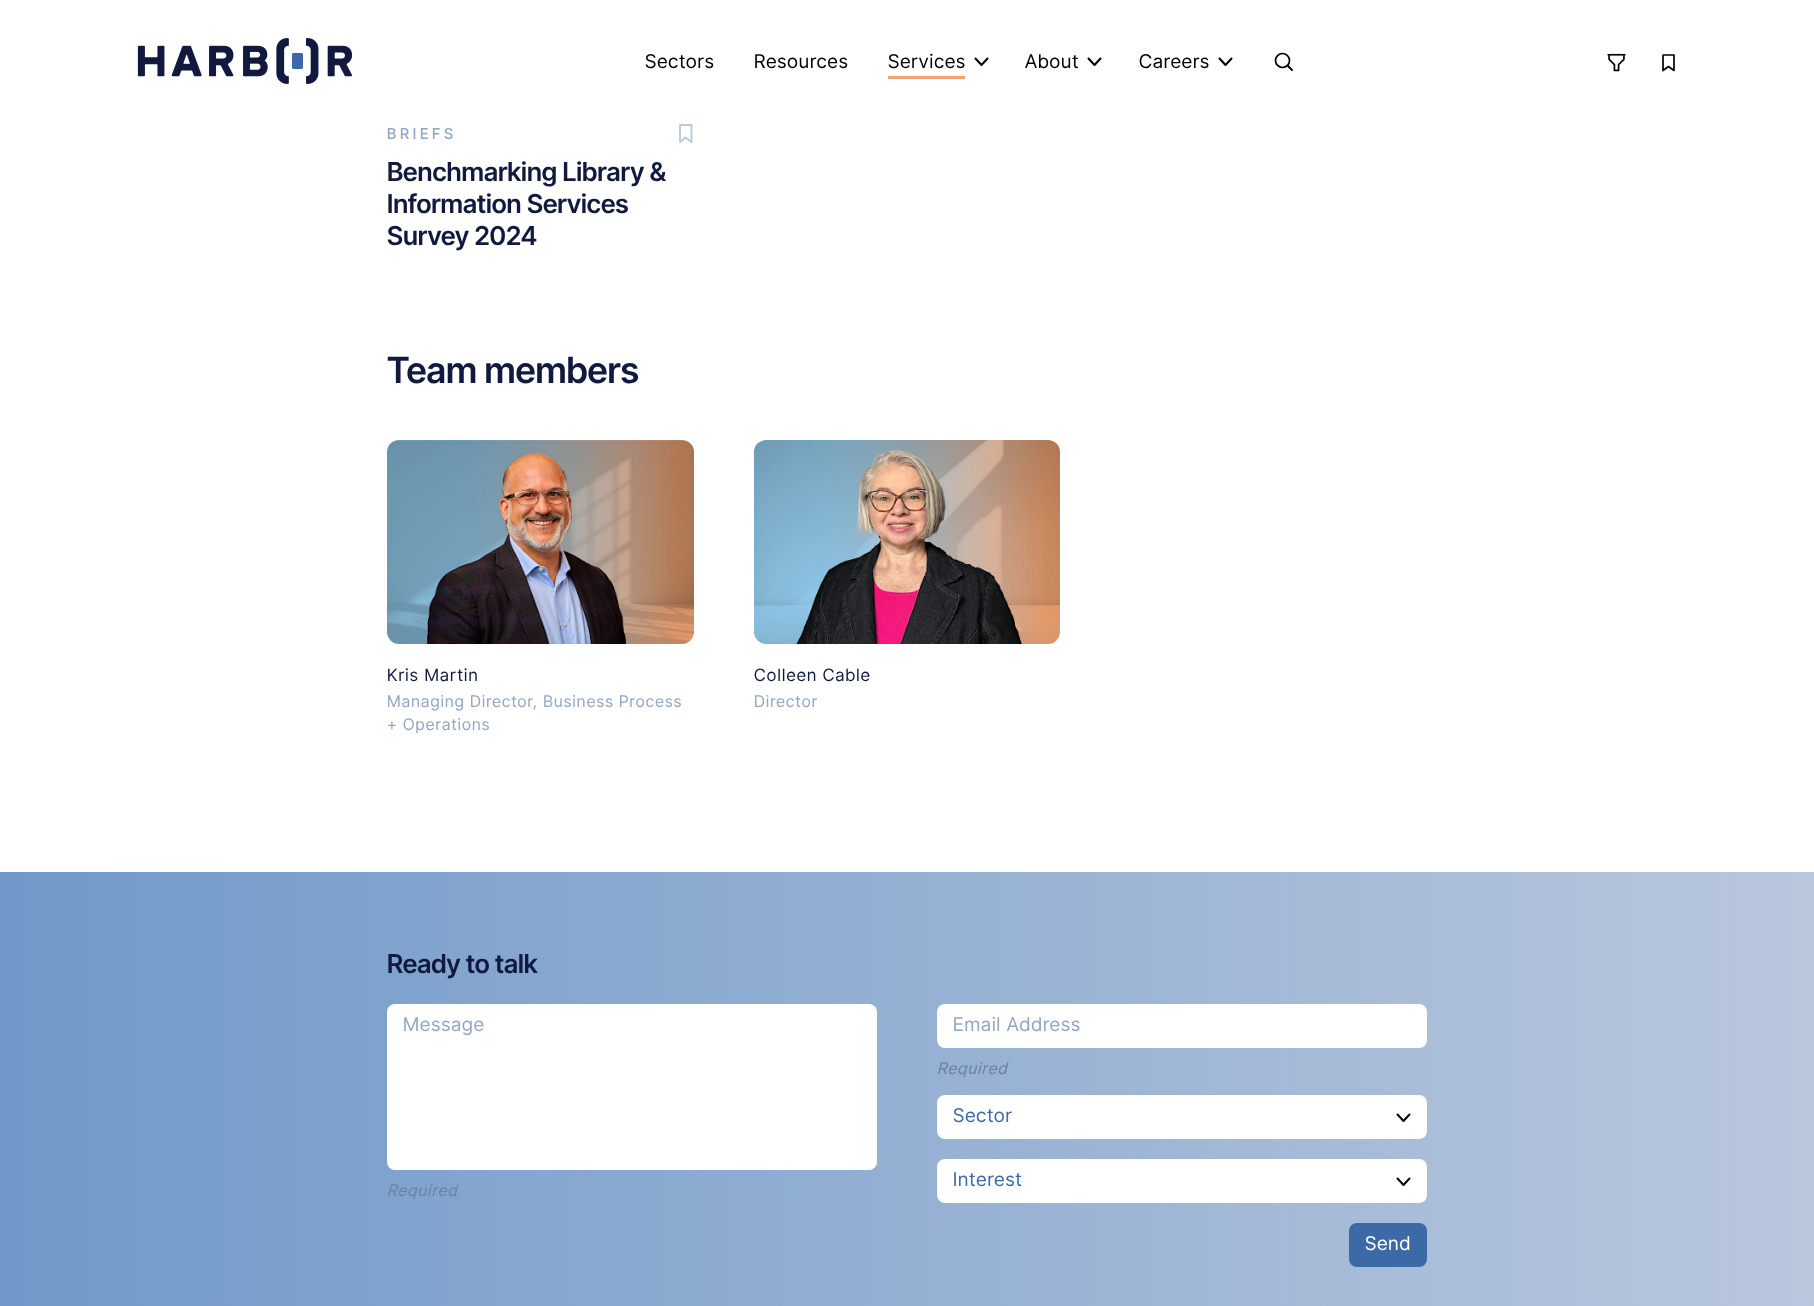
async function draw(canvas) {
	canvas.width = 1814;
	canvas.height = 1306;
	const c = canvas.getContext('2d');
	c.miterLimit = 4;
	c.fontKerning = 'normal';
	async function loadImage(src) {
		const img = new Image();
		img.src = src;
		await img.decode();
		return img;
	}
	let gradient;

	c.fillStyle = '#fff';
	c.fillRect(0, 0, 1814, 1306);
	c.drawImage(await loadImage('img1.png'), 137, 38, 216, 46);
	c.letterSpacing = '1px';
	c.font = '19px Inter Tight';
	c.fillStyle = '#000';
	for (const [text, x, y] of [
		['Sectors', 645, 68],
		['Resources', 754, 68],
		['Services', 888, 68],
	]) {
		c.fillText(text, x, y);
	}
	c.fillStyle = '#f2a574';
	c.fillRect(888, 76, 77, 3);
	c.beginPath();
	c.moveTo(987.5, 58.5);
	c.lineTo(981.5, 65);
	c.lineTo(975.5, 58.5);
	c.strokeStyle = '#000';
	c.lineWidth = 2;
	c.lineCap = 'round';
	c.lineJoin = 'round';
	c.stroke();
	c.fillStyle = '#000';
	c.fillText('About', 1025, 68);
	c.beginPath();
	c.moveTo(1100.5, 58.5);
	c.lineTo(1094.5, 65);
	c.lineTo(1088.5, 58.5);
	c.stroke();
	c.fillText('Careers', 1139, 68);
	c.beginPath();
	c.moveTo(1231.5, 58.5);
	c.lineTo(1225.5, 65);
	c.lineTo(1219.5, 58.5);
	c.stroke();
	c.beginPath();
	c.moveTo(1288, 66);
	c.lineTo(1292, 70);
	c.stroke();
	c.beginPath();
	c.arc(1282.5, 60.5, 7, 0, 2 * Math.PI);
	c.lineWidth = 1.7;
	c.stroke();
	c.drawImage(await loadImage('img2.png'), 1607, 53, 19, 19);
	c.beginPath();
	c.moveTo(1674, 70.5);
	c.lineTo(1668.5, 66.5);
	c.lineTo(1663, 70.5);
	c.lineTo(1663, 55);
	c.lineTo(1674, 55);
	c.closePath();
	c.stroke();
	c.letterSpacing = '3.75px';
	c.font = '500 15px Inter Tight';
	c.fillStyle = '#93a6c3';
	c.fillText('BRIEFS', 387, 139);
	c.beginPath();
	c.moveTo(691.5, 142);
	c.lineTo(685.5, 137.5);
	c.lineTo(680, 142);
	c.lineTo(680, 125);
	c.lineTo(691.5, 125);
	c.closePath();
	c.strokeStyle = '#b9c7dd';
	c.lineWidth = 1.8;
	c.stroke();
	c.letterSpacing = '0px';
	c.font = '600 26px Inter Tight';
	c.fillStyle = '#11193f';
	for (const [text, x, y] of [
		['Benchmarking Library &', 387, 181],
		['Information Services', 387, 213],
		['Survey 2024', 387, 245],
	]) {
		c.fillText(text, x, y);
	}
	c.font = '600 36px Inter Tight';
	c.fillText('Team members', 387, 383);
	c.drawImage(await loadImage('img3.png'), 387, 440, 307, 204);
	c.letterSpacing = '1.25px';
	c.font = '17px Inter Tight';
	c.fillText('Kris Martin', 387, 681);
	c.letterSpacing = '1.2px';
	c.font = '16px Inter Tight';
	c.fillStyle = '#93a6c3';
	c.fillText('Managing Director, Business Process', 387, 707);
	c.fillText('+ Operations', 387, 730);
	c.drawImage(await loadImage('img4.png'), 754, 440, 306, 204);
	c.letterSpacing = '1.25px';
	c.font = '17px Inter Tight';
	c.fillStyle = '#11193f';
	c.fillText('Colleen Cable', 754, 681);
	c.letterSpacing = '1.2px';
	c.font = '16px Inter Tight';
	c.fillStyle = '#93a6c3';
	c.fillText('Director', 754, 707);
	gradient = c.createLinearGradient(0, 1110, 1814, 1110);
	gradient.addColorStop(0, '#7099c9');
	gradient.addColorStop(1, '#b9c7dd');
	c.fillStyle = gradient;
	c.fillRect(0, 872, 1814, 434);
	c.letterSpacing = '0px';
	c.font = '600 26px Inter Tight';
	c.fillStyle = '#11193f';
	c.fillText('Ready to talk', 387, 973);
	c.fillStyle = '#fff';
	c.beginPath();
	c.roundRect(387, 1004, 490, 166, 8);
	c.fill();
	c.letterSpacing = '1px';
	c.font = '19px Inter Tight';
	c.fillStyle = '#93a6c3';
	c.fillText('Message', 403, 1031);
	c.letterSpacing = '1.2px';
	c.font = 'italic 16px Inter Tight';
	c.fillStyle = '#6e819d';
	c.fillText('Required', 387, 1196);
	c.fillStyle = '#fff';
	c.beginPath();
	c.roundRect(937, 1004, 490, 44, 8);
	c.fill();
	c.letterSpacing = '1px';
	c.font = '19px Inter Tight';
	c.fillStyle = '#93a6c3';
	c.fillText('Email Address', 953, 1031);
	c.letterSpacing = '1.2px';
	c.font = 'italic 16px Inter Tight';
	c.fillStyle = '#6e819d';
	c.fillText('Required', 937, 1074);
	c.fillStyle = '#fff';
	c.beginPath();
	c.roundRect(937, 1095, 490, 44, 8);
	c.fill();
	c.letterSpacing = '1px';
	c.font = '19px Inter Tight';
	c.fillStyle = '#3c6aa7';
	c.fillText('Sector', 953, 1122);
	c.beginPath();
	c.moveTo(1409.5, 1114.5);
	c.lineTo(1403.5, 1121);
	c.lineTo(1397.5, 1114.5);
	c.strokeStyle = '#000';
	c.lineWidth = 2;
	c.stroke();
	c.fillStyle = '#fff';
	c.beginPath();
	c.roundRect(937, 1159, 490, 44, 8);
	c.fill();
	c.fillStyle = '#3c6aa7';
	c.fillText('Interest', 953, 1186);
	c.beginPath();
	c.moveTo(1409.5, 1178.5);
	c.lineTo(1403.5, 1185);
	c.lineTo(1397.5, 1178.5);
	c.stroke();
	c.beginPath();
	c.roundRect(1349, 1223, 78, 44, 8);
	c.fill();
	c.fillStyle = '#fff';
	c.fillText('Send', 1365, 1250);
}

draw(document.querySelector('canvas'));
